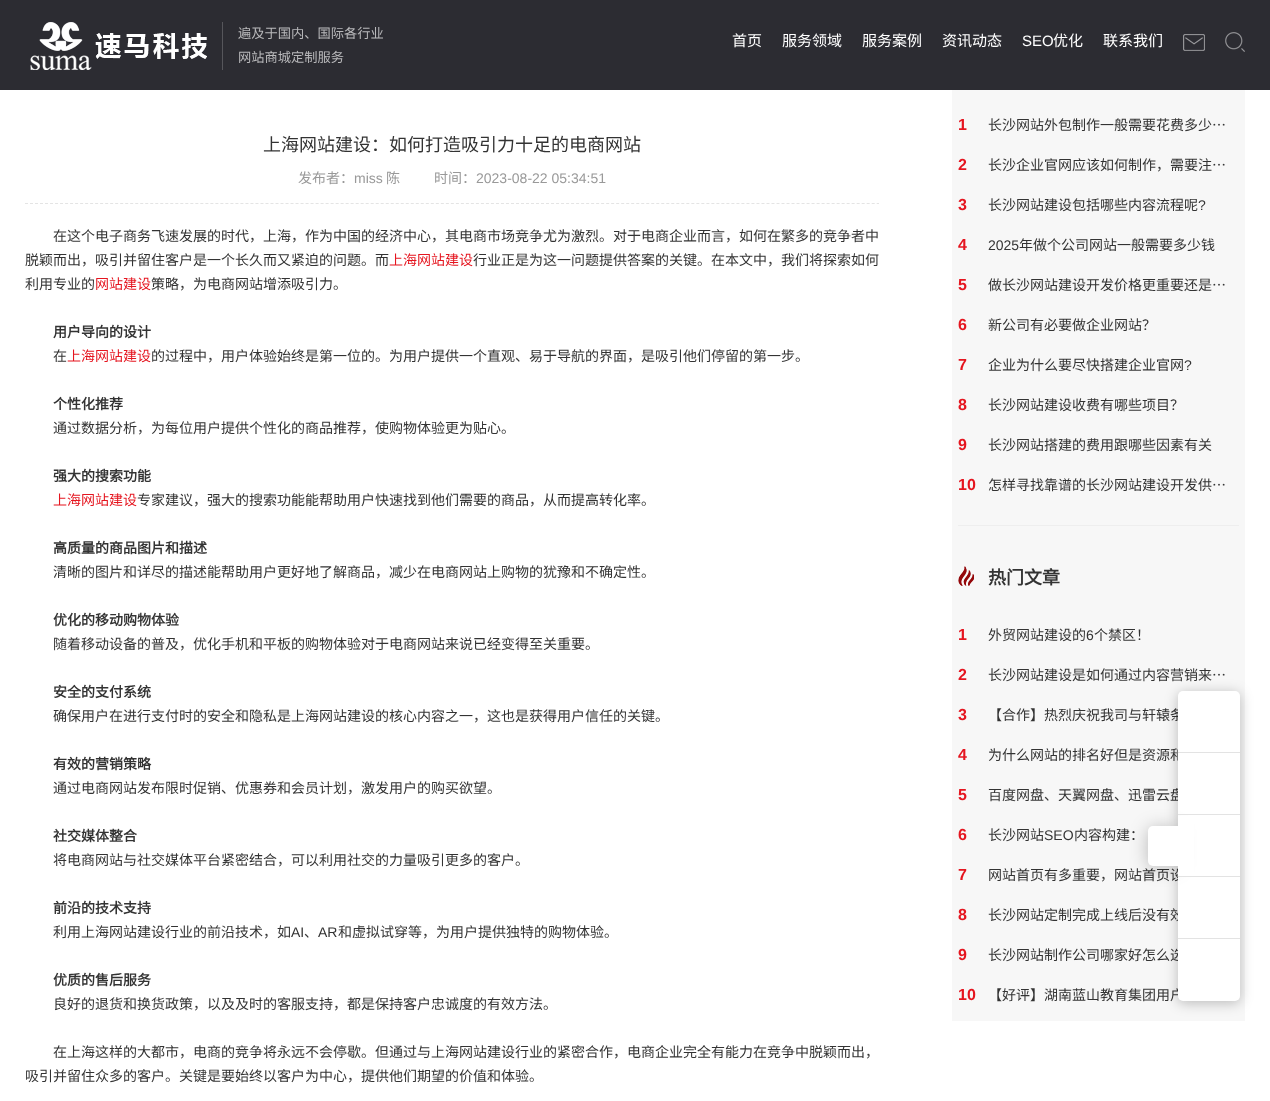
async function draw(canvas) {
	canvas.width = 1270;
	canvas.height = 1101;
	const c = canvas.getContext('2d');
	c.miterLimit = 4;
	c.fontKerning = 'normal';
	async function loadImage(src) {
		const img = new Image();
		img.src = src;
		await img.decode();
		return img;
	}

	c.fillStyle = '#fff';
	c.fillRect(0, 0, 1270, 1101);
	c.fillStyle = '#2c2c32';
	c.fillRect(0, 0, 1270, 90);
	c.drawImage(await loadImage('img1.png'), 30, 22, 177, 48);
	c.fillStyle = '#56565b';
	c.fillRect(222, 22, 1, 48);
	c.font = '13.25px Noto Sans CJK SC';
	c.fillStyle = '#b9b9bb';
	c.fillText('遍及于国内、国际各行业', 238, 38);
	c.fillText('网站商城定制服务', 238, 62);
	c.font = '15px Noto Sans CJK SC';
	c.fillStyle = '#fff';
	for (const [text, x, y] of [
		['首页', 732, 46],
		['服务领域', 782, 46],
		['服务案例', 862, 46],
		['资讯动态', 942, 46],
	]) {
		c.fillText(text, x, y);
	}
	c.font = '15px Liberation Sans';
	c.fillText('SEO', 1022, 46);
	c.font = '15px Noto Sans CJK SC';
	c.fillText('优化', 1053, 46);
	c.fillText('联系我们', 1103, 46);
	c.drawImage(await loadImage('img2.png'), 1183, 34, 22, 17);
	c.drawImage(await loadImage('img3.png'), 1225, 32, 20, 20);
	c.beginPath();
	c.moveTo(25, 203.5);
	c.lineTo(879, 203.5);
	c.strokeStyle = '#e4e4e4';
	c.setLineDash([3, 2.01]);
	c.stroke();
	c.font = '18px Noto Sans CJK SC';
	c.fillStyle = '#333';
	c.fillText('上海网站建设：如何打造吸引力十足的电商网站', 263, 151);
	c.font = '14px Noto Sans CJK SC';
	c.fillStyle = '#999';
	c.fillText('发布者：', 298, 183);
	c.font = '14px Liberation Sans';
	c.fillText('miss', 354, 183);
	c.font = '14px Noto Sans CJK SC';
	c.fillText('陈', 386, 183);
	c.fillText('时间：', 434, 183);
	c.font = '14px Liberation Sans';
	c.fillText('2023-08-22 05:34:51', 476, 183);
	c.font = '14px Noto Sans CJK SC';
	c.fillStyle = '#333';
	c.fillText('在这个电子商务飞速发展的时代，上海，作为中国的经济中心，其电商市场竞争尤为激烈。对于电商企业而言，如何在繁多的竞争者中', 53, 241);
	c.fillText('脱颖而出，吸引并留住客户是一个长久而又紧迫的问题。而', 25, 265);
	c.fillStyle = '#e5151f';
	c.fillText('上海网站建设', 389, 265);
	c.fillStyle = '#333';
	c.fillText('行业正是为这一问题提供答案的关键。在本文中，我们将探索如何', 473, 265);
	c.fillText('利用专业的', 25, 289);
	c.fillStyle = '#e5151f';
	c.fillText('网站建设', 95, 289);
	c.fillStyle = '#333';
	c.fillText('策略，为电商网站增添吸引力。', 151, 289);
	c.font = 'bold 14px Noto Sans CJK SC';
	c.fillText('用户导向的设计', 53, 337);
	c.font = '14px Noto Sans CJK SC';
	c.fillText('在', 53, 361);
	c.fillStyle = '#e5151f';
	c.fillText('上海网站建设', 67, 361);
	c.fillStyle = '#333';
	c.fillText('的过程中，用户体验始终是第一位的。为用户提供一个直观、易于导航的界面，是吸引他们停留的第一步。', 151, 361);
	c.font = 'bold 14px Noto Sans CJK SC';
	c.fillText('个性化推荐', 53, 409);
	c.font = '14px Noto Sans CJK SC';
	c.fillText('通过数据分析，为每位用户提供个性化的商品推荐，使购物体验更为贴心。', 53, 433);
	c.font = 'bold 14px Noto Sans CJK SC';
	c.fillText('强大的搜索功能', 53, 481);
	c.font = '14px Noto Sans CJK SC';
	c.fillStyle = '#e5151f';
	c.fillText('上海网站建设', 53, 505);
	c.fillStyle = '#333';
	c.fillText('专家建议，强大的搜索功能能帮助用户快速找到他们需要的商品，从而提高转化率。', 137, 505);
	c.font = 'bold 14px Noto Sans CJK SC';
	c.fillText('高质量的商品图片和描述', 53, 553);
	c.font = '14px Noto Sans CJK SC';
	c.fillText('清晰的图片和详尽的描述能帮助用户更好地了解商品，减少在电商网站上购物的犹豫和不确定性。', 53, 577);
	c.font = 'bold 14px Noto Sans CJK SC';
	c.fillText('优化的移动购物体验', 53, 625);
	c.font = '14px Noto Sans CJK SC';
	c.fillText('随着移动设备的普及，优化手机和平板的购物体验对于电商网站来说已经变得至关重要。', 53, 649);
	c.font = 'bold 14px Noto Sans CJK SC';
	c.fillText('安全的支付系统', 53, 697);
	c.font = '14px Noto Sans CJK SC';
	c.fillText('确保用户在进行支付时的安全和隐私是上海网站建设的核心内容之一，这也是获得用户信任的关键。', 53, 721);
	c.font = 'bold 14px Noto Sans CJK SC';
	c.fillText('有效的营销策略', 53, 769);
	c.font = '14px Noto Sans CJK SC';
	c.fillText('通过电商网站发布限时促销、优惠券和会员计划，激发用户的购买欲望。', 53, 793);
	c.font = 'bold 14px Noto Sans CJK SC';
	c.fillText('社交媒体整合', 53, 841);
	c.font = '14px Noto Sans CJK SC';
	c.fillText('将电商网站与社交媒体平台紧密结合，可以利用社交的力量吸引更多的客户。', 53, 865);
	c.font = 'bold 14px Noto Sans CJK SC';
	c.fillText('前沿的技术支持', 53, 913);
	c.font = '14px Noto Sans CJK SC';
	c.fillText('利用上海网站建设行业的前沿技术，如', 53, 937);
	c.font = '14px Liberation Sans';
	c.fillText('AI', 291, 937);
	c.font = '14px Noto Sans CJK SC';
	c.fillText('、', 304, 937);
	c.font = '14px Liberation Sans';
	c.fillText('AR', 318, 937);
	c.font = '14px Noto Sans CJK SC';
	c.fillText('和虚拟试穿等，为用户提供独特的购物体验。', 338, 937);
	c.font = 'bold 14px Noto Sans CJK SC';
	c.fillText('优质的售后服务', 53, 985);
	c.font = '14px Noto Sans CJK SC';
	for (const [text, x, y] of [
		['良好的退货和换货政策，以及及时的客服支持，都是保持客户忠诚度的有效方法。', 53, 1009],
		['在上海这样的大都市，电商的竞争将永远不会停歇。但通过与上海网站建设行业的紧密合作，电商企业完全有能力在竞争中脱颖而出，', 53, 1057],
		['吸引并留住众多的客户。关键是要始终以客户为中心，提供他们期望的价值和体验。', 25, 1081],
	]) {
		c.fillText(text, x, y);
	}
	c.fillStyle = '#f7f7f7';
	c.fillRect(952, 90, 293, 931);
	c.font = 'bold 16px Liberation Sans';
	c.fillStyle = '#e5151f';
	c.fillText('1', 958, 130);
	c.font = '14px Noto Sans CJK SC';
	c.fillStyle = '#333';
	c.fillText('长沙网站外包制作一般需要花费多少…', 988, 130);
	c.font = 'bold 16px Liberation Sans';
	c.fillStyle = '#e5151f';
	c.fillText('2', 958, 170);
	c.font = '14px Noto Sans CJK SC';
	c.fillStyle = '#333';
	c.fillText('长沙企业官网应该如何制作，需要注…', 988, 170);
	c.font = 'bold 16px Liberation Sans';
	c.fillStyle = '#e5151f';
	c.fillText('3', 958, 210);
	c.font = '14px Noto Sans CJK SC';
	c.fillStyle = '#333';
	c.fillText('长沙网站建设包括哪些内容流程呢', 988, 210);
	c.font = '14px Liberation Sans';
	c.fillText('?', 1198, 210);
	c.font = 'bold 16px Liberation Sans';
	c.fillStyle = '#e5151f';
	c.fillText('4', 958, 250);
	c.font = '14px Liberation Sans';
	c.fillStyle = '#333';
	c.fillText('2025', 988, 250);
	c.font = '14px Noto Sans CJK SC';
	c.fillText('年做个公司网站一般需要多少钱', 1019, 250);
	c.font = 'bold 16px Liberation Sans';
	c.fillStyle = '#e5151f';
	c.fillText('5', 958, 290);
	c.font = '14px Noto Sans CJK SC';
	c.fillStyle = '#333';
	c.fillText('做长沙网站建设开发价格更重要还是…', 988, 290);
	c.font = 'bold 16px Liberation Sans';
	c.fillStyle = '#e5151f';
	c.fillText('6', 958, 330);
	c.font = '14px Noto Sans CJK SC';
	c.fillStyle = '#333';
	c.fillText('新公司有必要做企业网站？', 988, 330);
	c.font = 'bold 16px Liberation Sans';
	c.fillStyle = '#e5151f';
	c.fillText('7', 958, 370);
	c.font = '14px Noto Sans CJK SC';
	c.fillStyle = '#333';
	c.fillText('企业为什么要尽快搭建企业官网', 988, 370);
	c.font = '14px Liberation Sans';
	c.fillText('?', 1184, 370);
	c.font = 'bold 16px Liberation Sans';
	c.fillStyle = '#e5151f';
	c.fillText('8', 958, 410);
	c.font = '14px Noto Sans CJK SC';
	c.fillStyle = '#333';
	c.fillText('长沙网站建设收费有哪些项目？', 988, 410);
	c.font = 'bold 16px Liberation Sans';
	c.fillStyle = '#e5151f';
	c.fillText('9', 958, 450);
	c.font = '14px Noto Sans CJK SC';
	c.fillStyle = '#333';
	c.fillText('长沙网站搭建的费用跟哪些因素有关', 988, 450);
	c.font = 'bold 16px Liberation Sans';
	c.fillStyle = '#e5151f';
	c.fillText('10', 958, 490);
	c.font = '14px Noto Sans CJK SC';
	c.fillStyle = '#333';
	c.fillText('怎样寻找靠谱的长沙网站建设开发供…', 988, 490);
	c.fillStyle = '#eee';
	c.fillRect(958, 525, 281, 1);
	c.drawImage(await loadImage('img4.png'), 958, 566, 16, 20);
	c.font = 'bold 18px Noto Sans CJK SC';
	c.fillStyle = '#333';
	c.fillText('热门文章', 988, 584);
	c.font = 'bold 16px Liberation Sans';
	c.fillStyle = '#e5151f';
	c.fillText('1', 958, 640);
	c.font = '14px Noto Sans CJK SC';
	c.fillStyle = '#333';
	c.fillText('外贸网站建设的', 988, 640);
	c.font = '14px Liberation Sans';
	c.fillText('6', 1086, 640);
	c.font = '14px Noto Sans CJK SC';
	c.fillText('个禁区！', 1094, 640);
	c.font = 'bold 16px Liberation Sans';
	c.fillStyle = '#e5151f';
	c.fillText('2', 958, 680);
	c.font = '14px Noto Sans CJK SC';
	c.fillStyle = '#333';
	c.fillText('长沙网站建设是如何通过内容营销来…', 988, 680);
	c.font = 'bold 16px Liberation Sans';
	c.fillStyle = '#e5151f';
	c.fillText('3', 958, 720);
	c.font = '14px Noto Sans CJK SC';
	c.fillStyle = '#333';
	c.fillText('【合作】热烈庆祝我司与轩辕条', 988, 720);
	c.font = 'bold 16px Liberation Sans';
	c.fillStyle = '#e5151f';
	c.fillText('4', 958, 760);
	c.font = '14px Noto Sans CJK SC';
	c.fillStyle = '#333';
	c.fillText('为什么网站的排名好但是资源和', 988, 760);
	c.font = 'bold 16px Liberation Sans';
	c.fillStyle = '#e5151f';
	c.fillText('5', 958, 800);
	c.font = '14px Noto Sans CJK SC';
	c.fillStyle = '#333';
	c.fillText('百度网盘、天翼网盘、迅雷云盘', 988, 800);
	c.font = 'bold 16px Liberation Sans';
	c.fillStyle = '#e5151f';
	c.fillText('6', 958, 840);
	c.font = '14px Noto Sans CJK SC';
	c.fillStyle = '#333';
	c.fillText('长沙网站', 988, 840);
	c.font = '14px Liberation Sans';
	c.fillText('SEO', 1044, 840);
	c.font = '14px Noto Sans CJK SC';
	c.fillText('内容构建：', 1074, 840);
	c.font = 'bold 16px Liberation Sans';
	c.fillStyle = '#e5151f';
	c.fillText('7', 958, 880);
	c.font = '14px Noto Sans CJK SC';
	c.fillStyle = '#333';
	c.fillText('网站首页有多重要，网站首页设', 988, 880);
	c.font = 'bold 16px Liberation Sans';
	c.fillStyle = '#e5151f';
	c.fillText('8', 958, 920);
	c.font = '14px Noto Sans CJK SC';
	c.fillStyle = '#333';
	c.fillText('长沙网站定制完成上线后没有效', 988, 920);
	c.font = 'bold 16px Liberation Sans';
	c.fillStyle = '#e5151f';
	c.fillText('9', 958, 960);
	c.font = '14px Noto Sans CJK SC';
	c.fillStyle = '#333';
	c.fillText('长沙网站制作公司哪家好怎么选', 988, 960);
	c.font = 'bold 16px Liberation Sans';
	c.fillStyle = '#e5151f';
	c.fillText('10', 958, 1000);
	c.font = '14px Noto Sans CJK SC';
	c.fillStyle = '#333';
	c.fillText('【好评】湖南蓝山教育集团用户', 988, 1000);
	c.fillStyle = '#00000040';
	c.filter = 'blur(6.5px)';
	c.beginPath();
	c.roundRect(1178, 693, 62, 310, 5);
	c.fill();
	c.filter = 'none';
	c.fillStyle = '#fff';
	c.beginPath();
	c.roundRect(1178, 691, 62, 310, 5);
	c.fill();
	c.fillStyle = '#e3e3e3';
	c.fillRect(1178, 752, 62, 1);
	c.fillStyle = '#00000040';
	c.filter = 'blur(9px)';
	c.beginPath();
	c.roundRect(1148, 828, 30, 40, 5);
	c.fill();
	c.filter = 'none';
	c.fillStyle = '#fff';
	c.beginPath();
	c.roundRect(1148, 826, 30, 40, [5, 0, 0, 5]);
	c.fill();
	for (const [x, y, w, h, color] of [
		[1178, 814, 62, 1, '#e3e3e3'],
		[1178, 816, 16, 60, '#fff'],
		[1178, 876, 62, 1, '#e3e3e3'],
		[1178, 938, 62, 1, '#e3e3e3'],
	]) {
		c.fillStyle = color;
		c.fillRect(x, y, w, h);
	}
}

draw(document.querySelector('canvas'));
